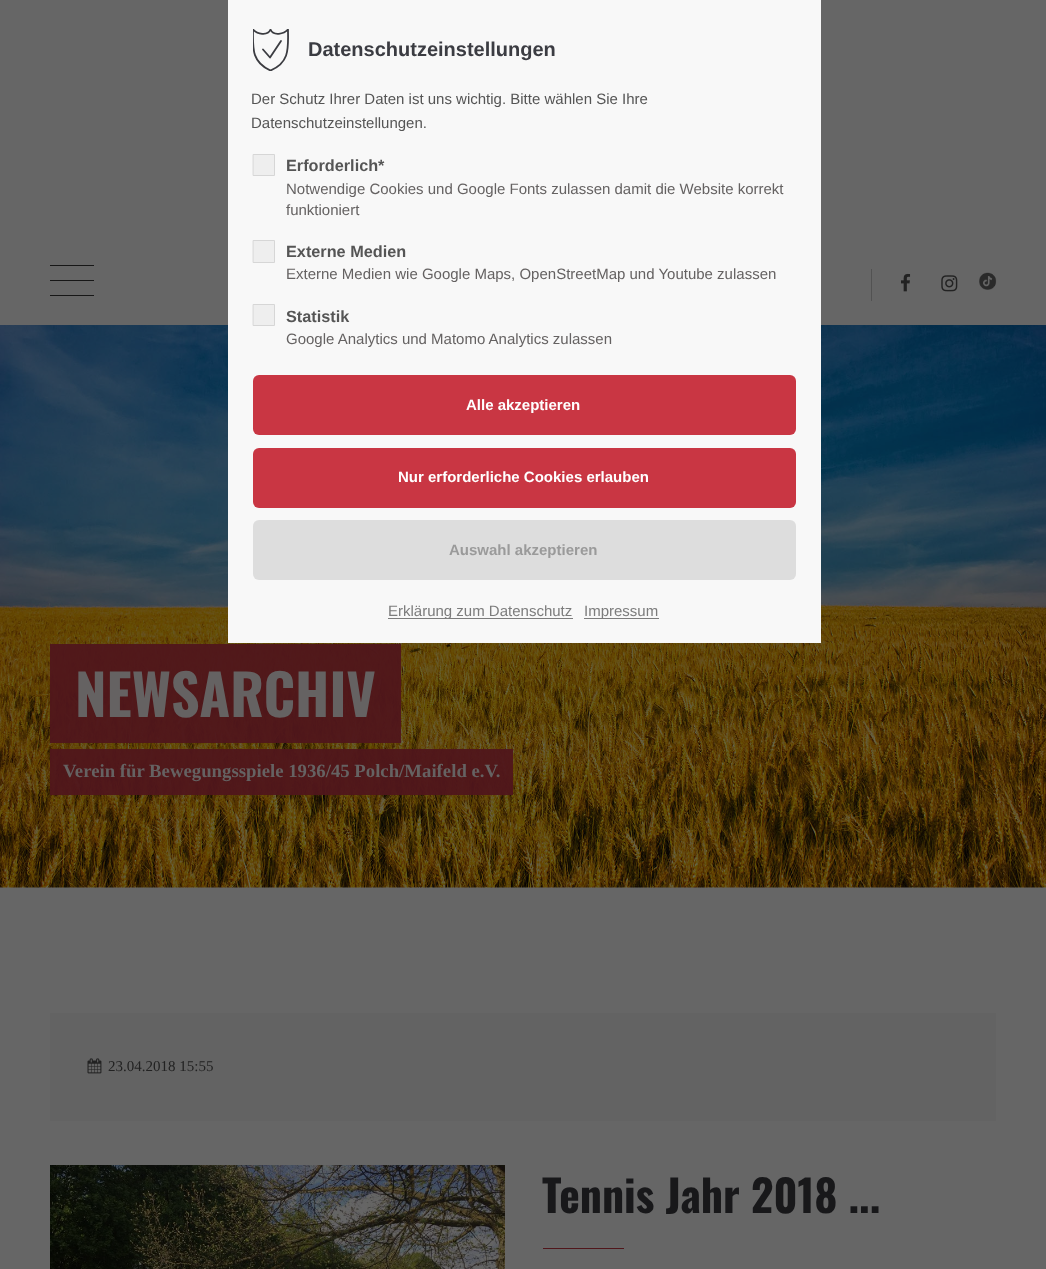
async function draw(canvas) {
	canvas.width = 1046;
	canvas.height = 1269;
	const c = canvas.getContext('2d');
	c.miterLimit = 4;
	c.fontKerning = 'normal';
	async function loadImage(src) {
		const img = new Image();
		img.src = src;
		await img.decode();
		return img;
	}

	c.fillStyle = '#666';
	c.fillRect(0, 0, 1046, 1269);
	c.drawImage(await loadImage('img4.png'), 0, 325, 1046, 563);
	c.fillStyle = '#f8f8f8';
	c.fillRect(228, 0, 593, 643);
	c.save();
	c.beginPath();
	c.rect(253, 29, 36, 42);
	c.clip();
	c.beginPath();
	c.moveTo(270.5, 70.5);
	c.bezierCurveTo(251, 62, 253, 47, 253, 29.5);
	c.bezierCurveTo(257, 34, 267.5, 36.5, 270.5, 29.5);
	c.bezierCurveTo(273.5, 36.5, 284, 34, 288, 29.5);
	c.bezierCurveTo(288, 47, 290.5, 62, 270.5, 70.5);
	c.closePath();
	c.strokeStyle = '#3b3c41';
	c.lineWidth = 1.8;
	c.lineCap = 'round';
	c.lineJoin = 'round';
	c.stroke();
	c.restore();
	c.beginPath();
	c.moveTo(263, 49.5);
	c.lineTo(270, 57.5);
	c.lineTo(281, 41);
	c.strokeStyle = '#3b3c41';
	c.lineWidth = 1.8;
	c.lineCap = 'round';
	c.lineJoin = 'round';
	c.stroke();
	c.font = 'bold 20px Liberation Sans';
	c.fillStyle = '#3b3c42';
	c.fillText('Datenschutzeinstellungen', 308, 56);
	c.font = '15px Liberation Sans';
	c.fillStyle = '#555';
	c.fillText('Der Schutz Ihrer Daten ist uns wichtig. Bitte wählen Sie Ihre', 251, 104);
	c.fillText('Datenschutzeinstellungen.', 251, 128);
	c.fillStyle = '#eee';
	c.beginPath();
	c.rect(253.5, 154.5, 21, 21);
	c.fill();
	c.strokeStyle = '#d6d6d6';
	c.lineWidth = 1;
	c.lineJoin = 'miter';
	c.stroke();
	c.font = 'bold 16.25px Liberation Sans';
	c.fillStyle = '#555';
	c.fillText('Erforderlich*', 286, 171);
	c.font = '15px Liberation Sans';
	c.fillStyle = '#656262';
	c.fillText('Notwendige Cookies und Google Fonts zulassen damit die Website korrekt', 286, 194);
	c.fillText('funktioniert', 286, 215);
	c.fillStyle = '#eee';
	c.beginPath();
	c.rect(253.5, 240.5, 21, 22);
	c.fill();
	c.stroke();
	c.font = 'bold 16.25px Liberation Sans';
	c.fillStyle = '#555';
	c.fillText('Externe Medien', 286, 257);
	c.font = '15px Liberation Sans';
	c.fillStyle = '#656262';
	c.fillText('Externe Medien wie Google Maps, OpenStreetMap und Youtube zulassen', 286, 279);
	c.fillStyle = '#eee';
	c.beginPath();
	c.rect(253.5, 304.5, 21, 21);
	c.fill();
	c.stroke();
	c.font = 'bold 16.25px Liberation Sans';
	c.fillStyle = '#555';
	c.fillText('Statistik', 286, 322);
	c.font = '15px Liberation Sans';
	c.fillStyle = '#656262';
	c.fillText('Google Analytics und Matomo Analytics zulassen', 286, 344);
	c.fillStyle = '#c93643';
	c.beginPath();
	c.roundRect(253, 375, 543, 60, 6);
	c.fill();
	c.font = 'bold 15px Liberation Sans';
	c.fillStyle = '#fff';
	c.fillText('Alle akzeptieren', 466, 410);
	c.fillStyle = '#c93643';
	c.beginPath();
	c.roundRect(253, 448, 543, 60, 6);
	c.fill();
	c.fillStyle = '#fff';
	c.fillText('Nur erforderliche Cookies erlauben', 398, 482);
	c.fillStyle = '#ddd';
	c.beginPath();
	c.roundRect(253, 520, 543, 60, 6);
	c.fill();
	c.fillStyle = '#9a9a9a';
	c.fillText('Auswahl akzeptieren', 449, 555);
	c.fillStyle = '#7c7c7c';
	c.fillRect(388, 618, 185, 1);
	c.font = '15px Liberation Sans';
	c.fillText('Erklärung zum Datenschutz', 388, 616);
	c.fillRect(584, 618, 75, 1);
	c.fillText('Impressum', 584, 616);
	for (const [x, y, w, h, color] of [
		[50, 280, 44, 1, '#171717'],
		[50, 265, 44, 1, '#171717'],
		[50, 295, 44, 1, '#171717'],
		[871, 269, 1, 32, '#525252'],
	]) {
		c.fillStyle = color;
		c.fillRect(x, y, w, h);
	}
	c.drawImage(await loadImage('img1.png'), 901, 273, 10, 19);
	c.drawImage(await loadImage('img2.png'), 941, 275, 17, 17);
	c.drawImage(await loadImage('img3.png'), 979, 272, 18, 18);
	c.fillStyle = '#50161bf2';
	c.fillRect(50, 644, 351, 99);
	c.font = 'bold 56.25px Oswald';
	c.fillStyle = '#656262';
	c.fillText('NEWSARCHIV', 75, 717);
	c.fillStyle = '#50161bf2';
	c.fillRect(50, 749, 463, 46);
	c.font = 'bold 18.75px Liberation Serif';
	c.fillStyle = '#656262';
	c.fillText('Verein für Bewegungsspiele 1936/45 Polch/Maifeld e.V.', 63, 777);
	c.fillStyle = '#636363';
	c.fillRect(50, 1013, 946, 108);
	c.drawImage(await loadImage('img5.png'), 87, 1058, 15, 16);
	c.font = '15px Liberation Serif';
	c.fillStyle = '#222';
	c.fillText('23.04.2018 15:55', 108, 1071);
	c.drawImage(await loadImage('img6.png'), 50, 1165, 455, 104);
	c.font = 'bold 43.75px Oswald';
	c.fillStyle = '#18181a';
	c.fillText('Tennis Jahr 2018 ...', 542, 1213);
	c.fillStyle = '#50161b';
	c.fillRect(543, 1248, 81, 1);
}

draw(document.querySelector('canvas'));
